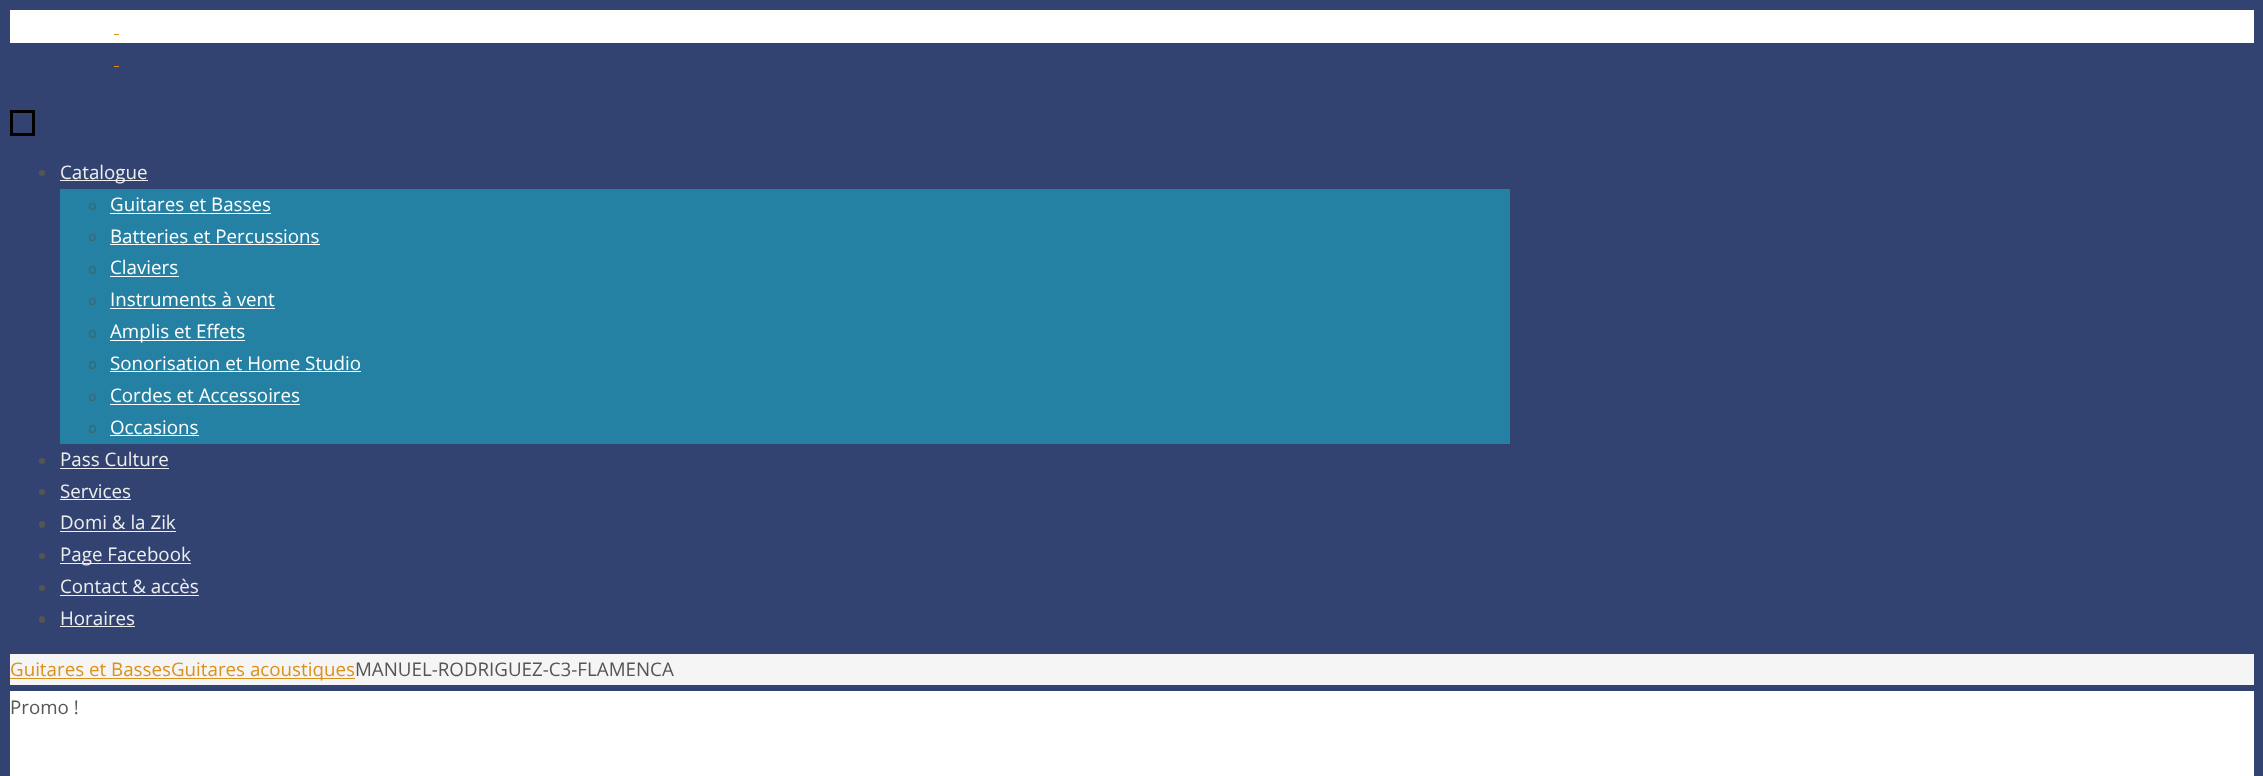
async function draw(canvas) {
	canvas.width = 2263;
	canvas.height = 776;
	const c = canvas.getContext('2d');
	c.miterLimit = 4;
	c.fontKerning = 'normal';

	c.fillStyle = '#324371';
	c.fillRect(0, 0, 2263, 776);
	for (const [x, y, w, h, color] of [
		[10, 10, 2244, 33, '#fff'],
		[114, 34, 5, 1, '#dc911b'],
		[114, 66, 5, 1, '#dc911b'],
	]) {
		c.fillStyle = color;
		c.fillRect(x, y, w, h);
	}
	c.strokeStyle = '#000';
	c.lineWidth = 3;
	c.strokeRect(11.5, 111.5, 22, 23);
	c.fillStyle = '#555';
	c.beginPath();
	c.arc(42, 173, 3, 0, 2 * Math.PI);
	c.fill();
	c.fillStyle = '#eee';
	c.fillRect(60, 180, 88, 1);
	c.font = '18.75px Open Sans';
	c.fillText('Catalogue', 60, 179);
	c.fillStyle = '#2481a3';
	c.fillRect(60, 189, 1450, 255);
	c.beginPath();
	c.arc(92.5, 206.5, 3, 0, 2 * Math.PI);
	c.strokeStyle = '#555';
	c.lineWidth = 1;
	c.stroke();
	c.fillStyle = '#fff';
	c.fillText('Guitares et Basses', 110, 211);
	c.fillRect(110, 213, 161, 1);
	c.beginPath();
	c.arc(92.5, 237.5, 3, 0, 2 * Math.PI);
	c.stroke();
	c.fillText('Batteries et Percussions', 110, 243);
	c.fillRect(110, 244, 210, 1);
	c.beginPath();
	c.roundRect(89.5, 266.5, 6, 7, 3);
	c.stroke();
	c.fillText('Claviers', 110, 274);
	c.fillRect(110, 276, 69, 1);
	c.beginPath();
	c.arc(92.5, 301.5, 3, 0, 2 * Math.PI);
	c.stroke();
	c.fillText('Instruments à vent', 110, 306);
	c.fillRect(110, 308, 165, 1);
	c.beginPath();
	c.roundRect(89.5, 330.5, 6, 7, 3);
	c.stroke();
	c.fillRect(110, 340, 135, 1);
	c.fillText('Amplis et Effets', 110, 338);
	c.beginPath();
	c.roundRect(89.5, 361.5, 6, 7, 3);
	c.stroke();
	c.fillText('Sonorisation et Home Studio', 110, 370);
	c.fillRect(110, 371, 251, 1);
	c.beginPath();
	c.arc(92.5, 397.5, 3, 0, 2 * Math.PI);
	c.stroke();
	c.fillText('Cordes et Accessoires', 110, 402);
	c.fillRect(110, 404, 190, 1);
	c.beginPath();
	c.roundRect(89.5, 425.5, 6, 7, 3);
	c.stroke();
	c.fillText('Occasions', 110, 434);
	c.fillRect(110, 435, 89, 1);
	c.fillStyle = '#555';
	c.beginPath();
	c.arc(42, 461, 3, 0, 2 * Math.PI);
	c.fill();
	c.fillStyle = '#eee';
	c.fillText('Pass Culture', 60, 466);
	c.fillRect(60, 468, 109, 1);
	c.fillStyle = '#555';
	c.beginPath();
	c.arc(42, 492, 3, 0, 2 * Math.PI);
	c.fill();
	c.fillStyle = '#eee';
	c.fillText('Services', 60, 498);
	c.fillRect(60, 499, 71, 1);
	c.fillStyle = '#555';
	c.beginPath();
	c.roundRect(39, 521, 6, 7, 3);
	c.fill();
	c.fillStyle = '#eee';
	c.fillText('Domi & la Zik', 60, 529);
	c.fillRect(60, 531, 116, 1);
	c.fillStyle = '#555';
	c.beginPath();
	c.arc(42, 556, 3, 0, 2 * Math.PI);
	c.fill();
	c.fillStyle = '#eee';
	c.fillRect(60, 563, 131, 1);
	c.fillText('Page Facebook', 60, 561);
	c.fillStyle = '#555';
	c.beginPath();
	c.arc(42, 588, 3, 0, 2 * Math.PI);
	c.fill();
	c.fillStyle = '#eee';
	c.fillText('Contact & accès', 60, 593);
	c.fillRect(60, 595, 139, 1);
	c.fillStyle = '#555';
	c.beginPath();
	c.roundRect(39, 616, 6, 7, 3);
	c.fill();
	c.fillStyle = '#eee';
	c.fillText('Horaires', 60, 625);
	for (const [x, y, w, h, color] of [
		[60, 626, 75, 1, '#eee'],
		[10, 654, 2244, 31, '#f5f5f5'],
		[10, 678, 345, 1, '#dc911b'],
	]) {
		c.fillStyle = color;
		c.fillRect(x, y, w, h);
	}
	c.fillText('Guitares et BassesGuitares acoustiques', 10, 676);
	c.fillStyle = '#555';
	c.fillText('MANUEL-RODRIGUEZ-C3-FLAMENCA', 355, 676);
	c.fillStyle = '#fff';
	c.fillRect(10, 691, 2244, 85);
	c.fillStyle = '#555';
	c.fillText('Promo !', 10, 714);
}

draw(document.querySelector('canvas'));
